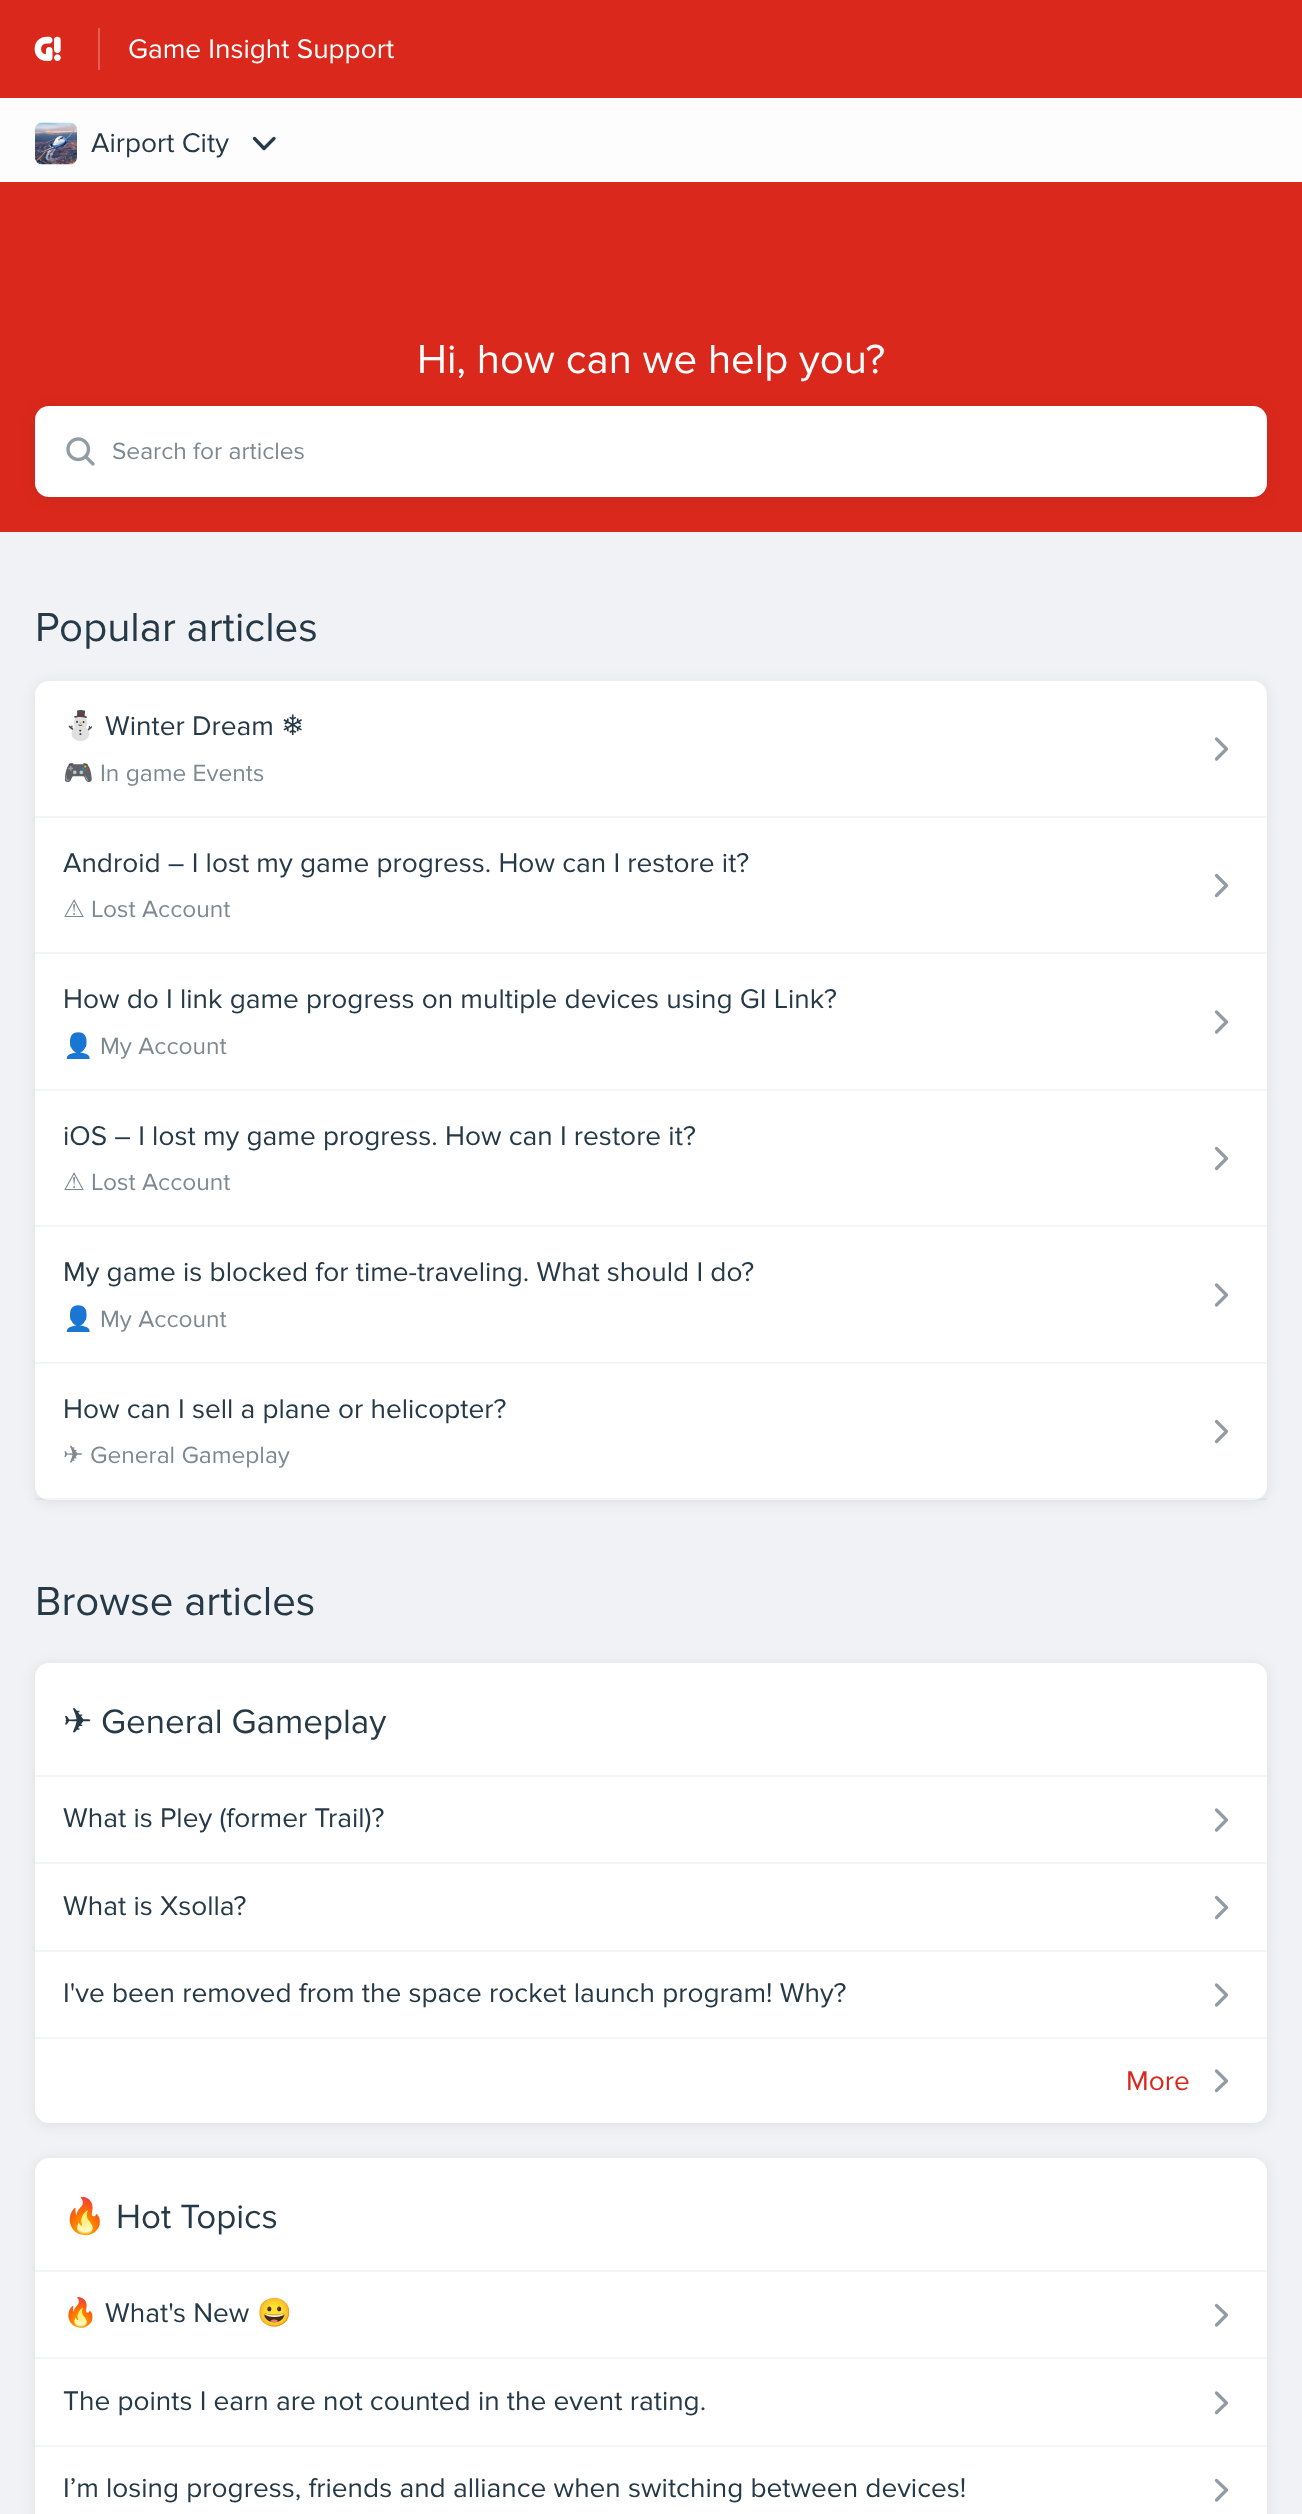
async function draw(canvas) {
	canvas.width = 1302;
	canvas.height = 2514;
	const c = canvas.getContext('2d');
	c.miterLimit = 4;
	c.fontKerning = 'normal';
	async function loadImage(src) {
		const img = new Image();
		img.src = src;
		await img.decode();
		return img;
	}

	c.fillStyle = '#f1f2f6';
	c.fillRect(0, 0, 1302, 2514);
	c.fillStyle = '#da291c';
	c.fillRect(0, 0, 1302, 98);
	c.fillStyle = '#e35f55';
	c.fillRect(98, 28, 2, 42);
	c.drawImage(await loadImage('img1.png'), 34, 36, 27, 25);
	c.font = '28px Proxima Nova';
	c.fillStyle = '#fff';
	c.fillText('Game Insight Support', 128, 58);
	c.fillStyle = '#fdfdfe';
	c.fillRect(0, 98, 1302, 84);
	c.drawImage(await loadImage('img2.png'), 35, 122, 42, 43);
	c.fillStyle = '#263947';
	c.fillText('Airport City', 91, 152);
	c.beginPath();
	c.moveTo(254.5, 138.5);
	c.lineTo(264, 148.5);
	c.lineTo(274, 138.5);
	c.strokeStyle = '#263947';
	c.lineWidth = 3.3;
	c.lineCap = 'round';
	c.lineJoin = 'round';
	c.stroke();
	c.fillStyle = '#da291c';
	c.fillRect(0, 182, 1302, 350);
	c.font = '42px Proxima Nova';
	c.fillStyle = '#fff';
	c.fillText('Hi, how can we help you?', 417, 373);
	c.fillStyle = '#00000014';
	c.filter = 'blur(7px)';
	c.beginPath();
	c.roundRect(35, 408, 1232, 91, 14);
	c.fill();
	c.filter = 'none';
	c.fillStyle = '#fff';
	c.beginPath();
	c.roundRect(35, 406, 1232, 91, 14);
	c.fill();
	c.drawImage(await loadImage('img3.png'), 66, 437, 29, 29);
	c.font = '24.5px Proxima Nova';
	c.fillStyle = '#7d8891';
	c.fillText('Search for articles', 112, 459);
	c.font = '42px Proxima Nova';
	c.fillStyle = '#263947';
	c.fillText('Popular articles', 35, 641);
	c.fillStyle = '#00000014';
	c.filter = 'blur(7px)';
	c.beginPath();
	c.roundRect(35, 683, 1232, 819, 14);
	c.fill();
	c.filter = 'none';
	c.fillStyle = '#fff';
	c.beginPath();
	c.roundRect(35, 681, 1232, 819, 14);
	c.fill();
	c.fillStyle = '#f4f5f6';
	c.fillRect(35, 816, 1232, 2);
	c.font = '28px Noto Color Emoji';
	c.fillStyle = '#263947';
	c.fillText('⛄', 63, 735);
	c.font = '28px Proxima Nova';
	c.fillText('Winter Dream', 105, 735);
	c.font = '28px DejaVu Sans';
	c.fillText('❄', 281, 735);
	c.font = '24.5px Noto Color Emoji';
	c.fillStyle = '#7d8891';
	c.fillText('🎮', 63, 781);
	c.font = '24.5px Proxima Nova';
	c.fillText('In game Events', 100, 781);
	c.beginPath();
	c.moveTo(1216.5, 739);
	c.lineTo(1226.5, 749);
	c.lineTo(1216.5, 759);
	c.strokeStyle = '#939ca3';
	c.stroke();
	c.fillStyle = '#f4f5f6';
	c.fillRect(35, 952, 1232, 2);
	c.font = '28px Proxima Nova';
	c.fillStyle = '#263947';
	c.fillText('Android – I lost my game progress. How can I restore it?', 63, 872);
	c.font = '24.5px DejaVu Sans';
	c.fillStyle = '#7d8891';
	c.fillText('⚠', 63, 917);
	c.font = '24.5px Proxima Nova';
	c.fillText('Lost Account', 91, 917);
	c.beginPath();
	c.moveTo(1216.5, 875.5);
	c.lineTo(1226.5, 885.5);
	c.lineTo(1216.5, 895.5);
	c.stroke();
	c.fillStyle = '#f4f5f6';
	c.fillRect(35, 1089, 1232, 2);
	c.font = '28px Proxima Nova';
	c.fillStyle = '#263947';
	c.fillText('How do I link game progress on multiple devices using GI Link?', 63, 1008);
	c.font = '24.5px Noto Color Emoji';
	c.fillStyle = '#7d8891';
	c.fillText('👤', 63, 1054);
	c.font = '24.5px Proxima Nova';
	c.fillText('My Account', 100, 1054);
	c.beginPath();
	c.moveTo(1216.5, 1012);
	c.lineTo(1226.5, 1022);
	c.lineTo(1216.5, 1032);
	c.stroke();
	c.fillStyle = '#f4f5f6';
	c.fillRect(35, 1225, 1232, 2);
	c.font = '28px Proxima Nova';
	c.fillStyle = '#263947';
	c.fillText('iOS – I lost my game progress. How can I restore it?', 63, 1145);
	c.font = '24.5px DejaVu Sans';
	c.fillStyle = '#7d8891';
	c.fillText('⚠', 63, 1190);
	c.font = '24.5px Proxima Nova';
	c.fillText('Lost Account', 91, 1190);
	c.beginPath();
	c.moveTo(1216.5, 1148.5);
	c.lineTo(1226.5, 1158.5);
	c.lineTo(1216.5, 1168.5);
	c.stroke();
	c.fillStyle = '#f4f5f6';
	c.fillRect(35, 1362, 1232, 2);
	c.font = '28px Proxima Nova';
	c.fillStyle = '#263947';
	c.fillText('My game is blocked for time-traveling. What should I do?', 63, 1281);
	c.font = '24.5px Noto Color Emoji';
	c.fillStyle = '#7d8891';
	c.fillText('👤', 63, 1327);
	c.font = '24.5px Proxima Nova';
	c.fillText('My Account', 100, 1327);
	c.beginPath();
	c.moveTo(1216.5, 1285);
	c.lineTo(1226.5, 1295);
	c.lineTo(1216.5, 1305);
	c.stroke();
	c.fillStyle = '#2639470d';
	c.fillRect(35, 1498, 1232, 2);
	c.font = '28px Proxima Nova';
	c.fillStyle = '#263947';
	c.fillText('How can I sell a plane or helicopter?', 63, 1418);
	c.font = '24.5px DejaVu Sans';
	c.fillStyle = '#7d8891';
	c.fillText('✈', 63, 1463);
	c.font = '24.5px Proxima Nova';
	c.fillText('General Gameplay', 90, 1463);
	c.beginPath();
	c.moveTo(1216.5, 1421.5);
	c.lineTo(1226.5, 1431.5);
	c.lineTo(1216.5, 1441.5);
	c.stroke();
	c.font = '42px Proxima Nova';
	c.fillStyle = '#263947';
	c.fillText('Browse articles', 35, 1615);
	c.fillStyle = '#00000014';
	c.filter = 'blur(7px)';
	c.beginPath();
	c.roundRect(35, 1664, 1232, 461, 14);
	c.fill();
	c.filter = 'none';
	c.fillStyle = '#fff';
	c.beginPath();
	c.roundRect(35, 1663, 1232, 460, 14);
	c.fill();
	c.fillStyle = '#f4f5f6';
	c.fillRect(35, 1775, 1232, 2);
	c.font = '35px DejaVu Sans';
	c.fillStyle = '#263947';
	c.fillText('✈', 63, 1733);
	c.font = '35px Proxima Nova';
	c.fillText('General Gameplay', 101, 1733);
	c.fillStyle = '#f4f5f6';
	c.fillRect(35, 1862, 1232, 2);
	c.font = '28px Proxima Nova';
	c.fillStyle = '#263947';
	c.fillText('What is Pley (former Trail)?', 63, 1827);
	c.beginPath();
	c.moveTo(1216.5, 1810);
	c.lineTo(1226.5, 1820);
	c.lineTo(1216.5, 1830);
	c.stroke();
	c.fillStyle = '#f4f5f6';
	c.fillRect(35, 1950, 1232, 2);
	c.fillStyle = '#263947';
	c.fillText('What is Xsolla?', 63, 1915);
	c.beginPath();
	c.moveTo(1216.5, 1897.5);
	c.lineTo(1226.5, 1907.5);
	c.lineTo(1216.5, 1917.5);
	c.stroke();
	c.fillStyle = '#f4f5f6';
	c.fillRect(35, 2037, 1232, 2);
	c.fillStyle = '#263947';
	c.fillText('I\'ve been removed from the space rocket launch program! Why?', 63, 2002);
	c.beginPath();
	c.moveTo(1216.5, 1985);
	c.lineTo(1226.5, 1995);
	c.lineTo(1216.5, 2005);
	c.stroke();
	c.fillStyle = '#da291c';
	c.fillText('More', 1126, 2090);
	c.beginPath();
	c.moveTo(1216.5, 2071);
	c.lineTo(1226.5, 2081);
	c.lineTo(1216.5, 2090.5);
	c.stroke();
	c.fillStyle = '#00000014';
	c.filter = 'blur(7px)';
	c.beginPath();
	c.roundRect(35, 2160, 1232, 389, 14);
	c.fill();
	c.filter = 'none';
	c.fillStyle = '#fff';
	c.beginPath();
	c.moveTo(49, 2158);
	c.lineTo(1253, 2158);
	c.bezierCurveTo(1260.5, 2158, 1267, 2164.5, 1267, 2172);
	c.lineTo(1267, 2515);
	c.lineTo(35, 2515);
	c.lineTo(35, 2172);
	c.bezierCurveTo(35, 2164.5, 41.5, 2158, 49, 2158);
	c.closePath();
	c.fill();
	c.fillStyle = '#f4f5f6';
	c.fillRect(35, 2270, 1232, 2);
	c.font = '35px Noto Color Emoji';
	c.fillStyle = '#263947';
	c.fillText('🔥', 63, 2228);
	c.font = '35px Proxima Nova';
	c.fillText('Hot Topics', 116, 2228);
	c.fillStyle = '#f4f5f6';
	c.fillRect(35, 2357, 1232, 2);
	c.font = '28px Noto Color Emoji';
	c.fillStyle = '#263947';
	c.fillText('🔥', 63, 2322);
	c.font = '28px Proxima Nova';
	c.fillText('What\'s New', 105, 2322);
	c.font = '28px Noto Color Emoji';
	c.fillText('😀', 257, 2322);
	c.beginPath();
	c.moveTo(1216.5, 2305.5);
	c.lineTo(1226.5, 2315);
	c.lineTo(1216.5, 2325);
	c.stroke();
	c.fillStyle = '#f4f5f6';
	c.fillRect(35, 2445, 1232, 2);
	c.font = '28px Proxima Nova';
	c.fillStyle = '#263947';
	c.fillText('The points I earn are not counted in the event rating.', 63, 2410);
	c.beginPath();
	c.moveTo(1216.5, 2393);
	c.lineTo(1226.5, 2403);
	c.lineTo(1216.5, 2412.5);
	c.stroke();
	c.fillText('I’m losing progress, friends and alliance when switching between devices!', 63, 2497);
	c.beginPath();
	c.moveTo(1216.5, 2480.5);
	c.lineTo(1226.5, 2490);
	c.lineTo(1216.5, 2500);
	c.stroke();
}

draw(document.querySelector('canvas'));
